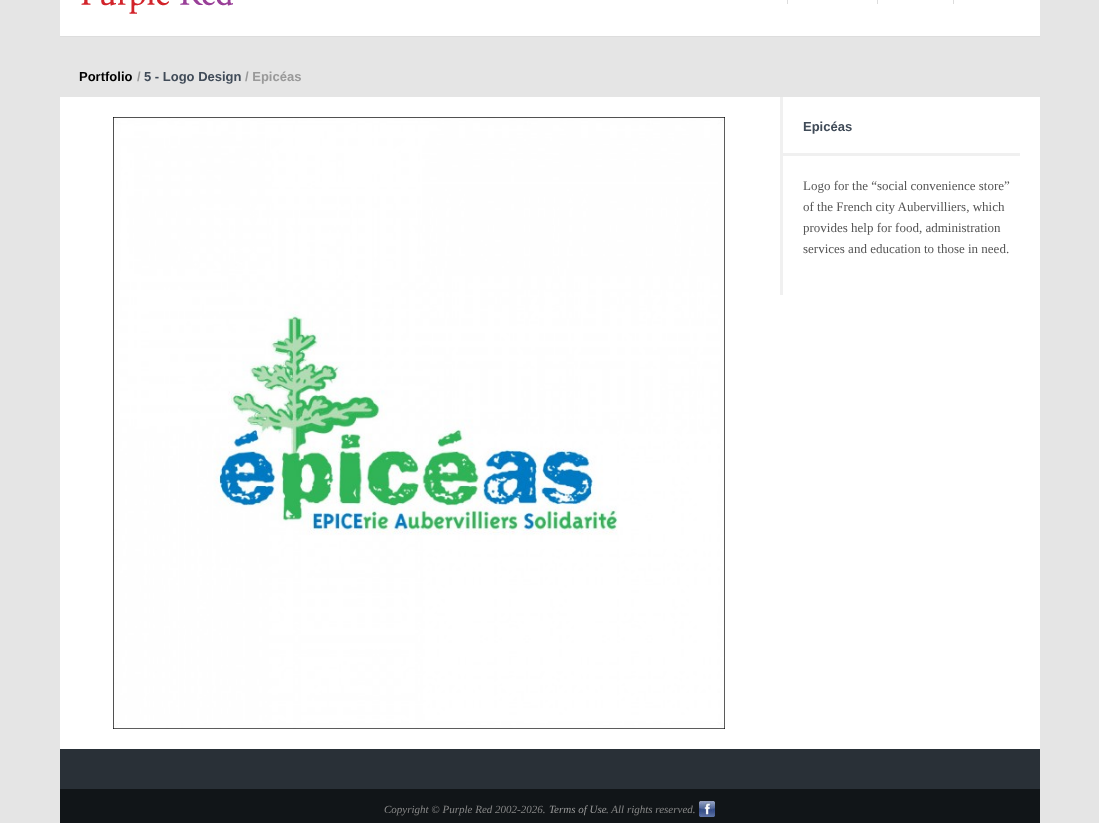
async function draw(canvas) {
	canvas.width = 1099;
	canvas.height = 823;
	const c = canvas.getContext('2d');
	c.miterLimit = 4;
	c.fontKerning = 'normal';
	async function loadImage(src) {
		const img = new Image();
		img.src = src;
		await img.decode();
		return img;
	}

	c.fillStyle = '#e5e5e5';
	c.fillRect(0, 0, 1099, 823);
	c.fillStyle = '#fff';
	c.fillRect(60, 0, 980, 36);
	c.fillStyle = '#ddd';
	c.fillRect(60, 36, 980, 1);
	c.drawImage(await loadImage('img1.png'), 81, 0, 152, 14);
	for (const [x, y, w, h, color] of [
		[787, 0, 1, 4, '#ddd'],
		[877, 0, 1, 4, '#ddd'],
		[953, 0, 1, 4, '#ddd'],
		[60, 97, 980, 652, '#fff'],
	]) {
		c.fillStyle = color;
		c.fillRect(x, y, w, h);
	}
	c.font = 'bold 13px Liberation Sans';
	c.fillStyle = '#000';
	c.fillText('Portfolio', 79, 81);
	c.fillStyle = '#999';
	c.fillText('/', 137, 81);
	c.fillStyle = '#404b58';
	c.fillText('5 - Logo Design', 144, 81);
	c.fillStyle = '#999';
	c.fillText('/ Epicéas', 245, 81);
	c.drawImage(await loadImage('img2.png'), 113, 117, 612, 612);
	c.fillStyle = '#f0f0f0';
	c.fillRect(780, 97, 3, 198);
	c.fillRect(783, 153, 237, 3);
	c.fillStyle = '#404b58';
	c.fillText('Epicéas', 803, 131);
	c.font = '13px Liberation Serif';
	c.fillStyle = '#555';
	for (const [text, x, y] of [
		['Logo for the “social convenience store”', 803, 190],
		['of the French city Aubervilliers, which', 803, 211],
		['provides help for food, administration', 803, 232],
		['services and education to those in need.', 803, 253],
	]) {
		c.fillText(text, x, y);
	}
	c.fillStyle = '#293037';
	c.fillRect(60, 749, 980, 40);
	c.fillStyle = '#111518';
	c.fillRect(60, 789, 980, 34);
	c.font = 'italic 11px Liberation Serif';
	c.fillStyle = '#878787';
	c.fillText('Copyright © Purple Red 2002-2026.', 384, 813);
	c.fillStyle = '#999';
	c.fillText('Terms of Use', 549, 813);
	c.fillStyle = '#878787';
	c.fillText('. All rights reserved.', 606, 813);
	c.drawImage(await loadImage('img3.png'), 699, 801, 16, 16);
}

draw(document.querySelector('canvas'));
